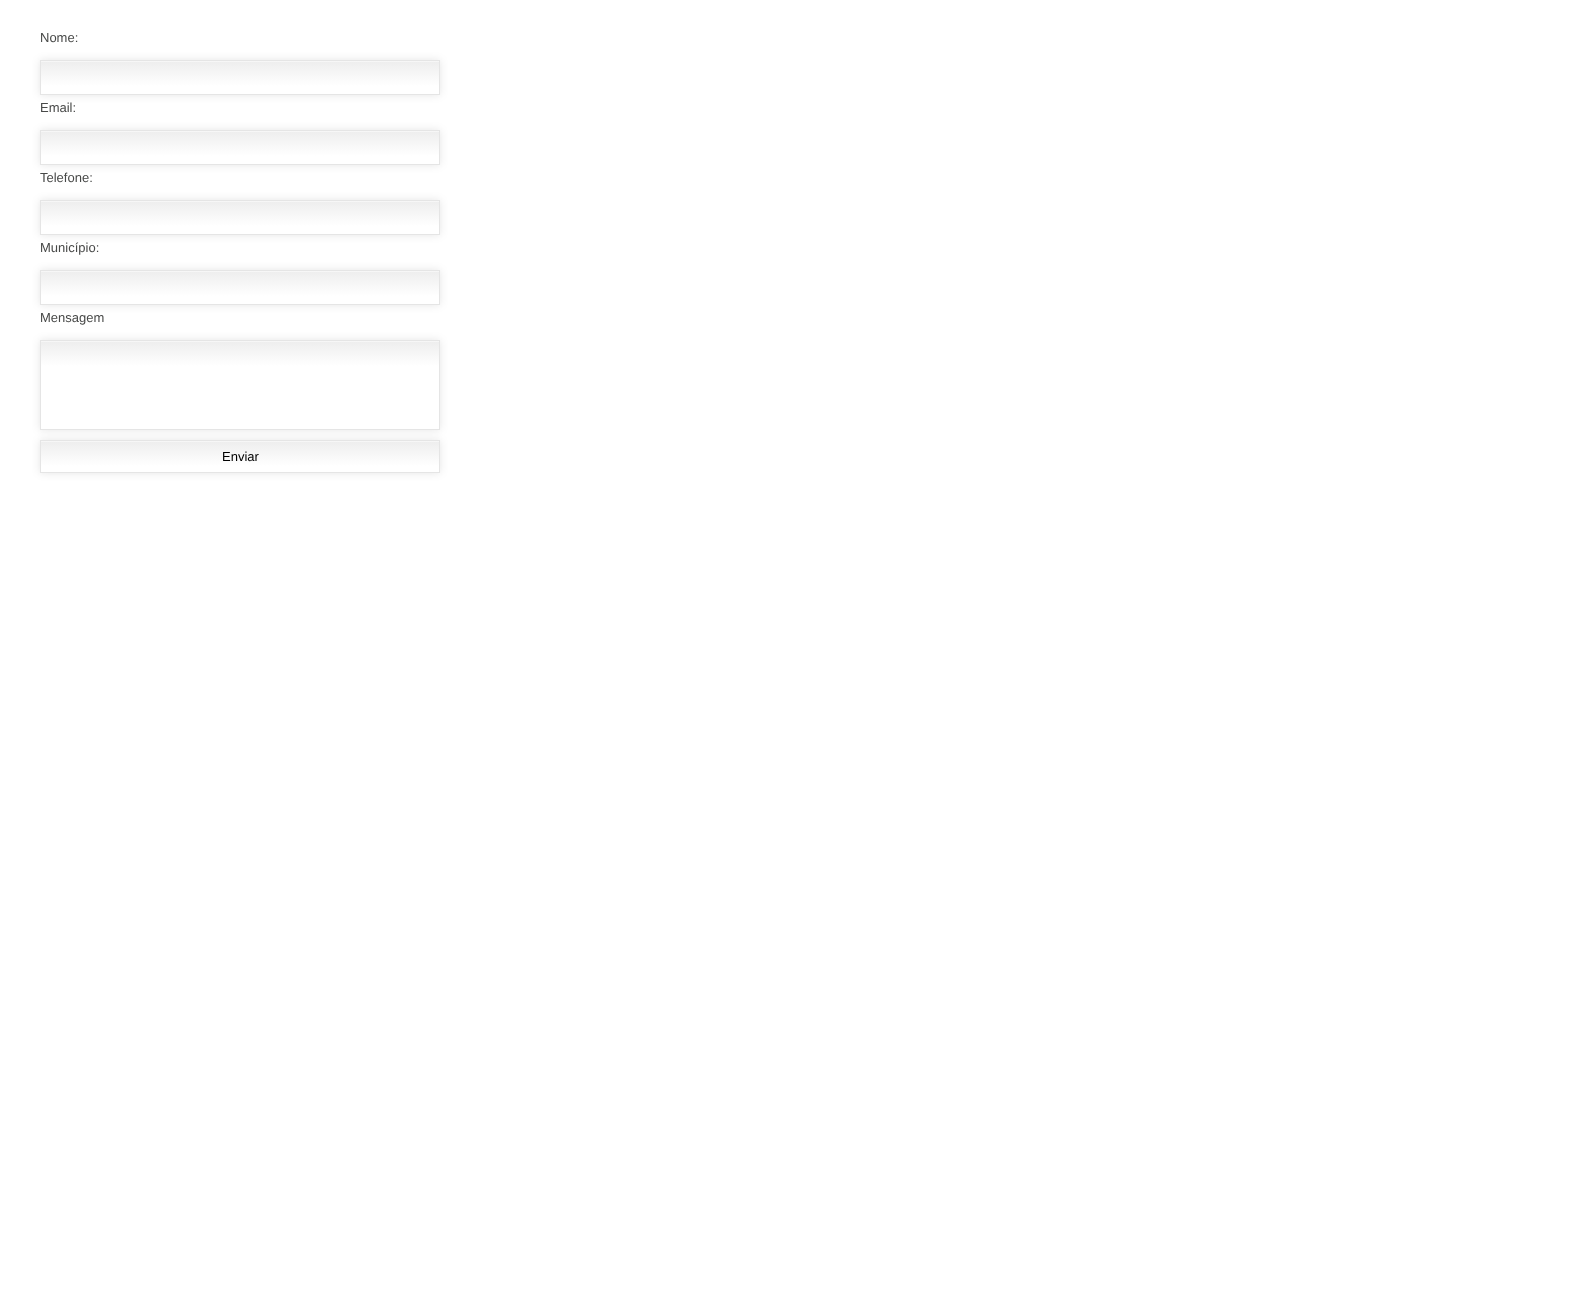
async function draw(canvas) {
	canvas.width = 1570;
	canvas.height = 1303;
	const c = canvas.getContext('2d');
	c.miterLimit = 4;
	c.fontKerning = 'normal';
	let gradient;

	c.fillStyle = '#fff';
	c.fillRect(0, 0, 1570, 1303);
	c.font = '13px Liberation Sans';
	c.fillStyle = '#484948';
	c.fillText('Nome:', 40, 42);
	c.fillStyle = '#0000001a';
	c.filter = 'blur(4px)';
	c.beginPath();
	c.rect(40, 60, 400, 35);
	c.fill();
	c.filter = 'none';
	gradient = c.createLinearGradient(41, 61, 41, 86);
	gradient.addColorStop(0, '#fff');
	gradient.addColorStop(0.04, '#eee');
	gradient.addColorStop(1, '#fff');
	c.fillStyle = gradient;
	c.fillRect(41, 61, 398, 33);
	c.strokeStyle = '#e5e5e5';
	c.strokeRect(40.5, 60.5, 399, 34);
	c.fillStyle = '#484948';
	c.fillText('Email:', 40, 112);
	c.fillStyle = '#0000001a';
	c.filter = 'blur(4px)';
	c.beginPath();
	c.rect(40, 130, 400, 35);
	c.fill();
	c.filter = 'none';
	gradient = c.createLinearGradient(41, 131, 41, 156);
	gradient.addColorStop(0, '#fff');
	gradient.addColorStop(0.04, '#eee');
	gradient.addColorStop(1, '#fff');
	c.fillStyle = gradient;
	c.fillRect(41, 131, 398, 33);
	c.strokeRect(40.5, 130.5, 399, 34);
	c.fillStyle = '#484948';
	c.fillText('Telefone:', 40, 182);
	c.fillStyle = '#0000001a';
	c.filter = 'blur(4px)';
	c.beginPath();
	c.rect(40, 200, 400, 35);
	c.fill();
	c.filter = 'none';
	gradient = c.createLinearGradient(41, 201, 41, 226);
	gradient.addColorStop(0, '#fff');
	gradient.addColorStop(0.04, '#eee');
	gradient.addColorStop(1, '#fff');
	c.fillStyle = gradient;
	c.fillRect(41, 201, 398, 33);
	c.strokeRect(40.5, 200.5, 399, 34);
	c.fillStyle = '#484948';
	c.fillText('Município:', 40, 252);
	c.fillStyle = '#0000001a';
	c.filter = 'blur(4px)';
	c.beginPath();
	c.rect(40, 270, 400, 35);
	c.fill();
	c.filter = 'none';
	gradient = c.createLinearGradient(41, 271, 41, 296);
	gradient.addColorStop(0, '#fff');
	gradient.addColorStop(0.04, '#eee');
	gradient.addColorStop(1, '#fff');
	c.fillStyle = gradient;
	c.fillRect(41, 271, 398, 33);
	c.strokeRect(40.5, 270.5, 399, 34);
	c.fillStyle = '#484948';
	c.fillText('Mensagem', 40, 322);
	c.fillStyle = '#0000001a';
	c.filter = 'blur(4px)';
	c.beginPath();
	c.rect(40, 340, 400, 90);
	c.fill();
	c.filter = 'none';
	gradient = c.createLinearGradient(41, 341, 41, 366);
	gradient.addColorStop(0, '#fff');
	gradient.addColorStop(0.04, '#eee');
	gradient.addColorStop(1, '#fff');
	c.fillStyle = gradient;
	c.fillRect(41, 341, 398, 88);
	c.strokeRect(40.5, 340.5, 399, 89);
	c.fillStyle = '#0000001a';
	c.filter = 'blur(4px)';
	c.beginPath();
	c.rect(40, 440, 400, 33);
	c.fill();
	c.filter = 'none';
	gradient = c.createLinearGradient(41, 441, 41, 466);
	gradient.addColorStop(0, '#fff');
	gradient.addColorStop(0.04, '#eee');
	gradient.addColorStop(1, '#fff');
	c.fillStyle = gradient;
	c.fillRect(41, 441, 398, 31);
	c.strokeRect(40.5, 440.5, 399, 32);
	c.fillStyle = '#000';
	c.fillText('Enviar', 222, 461);
}

draw(document.querySelector('canvas'));
